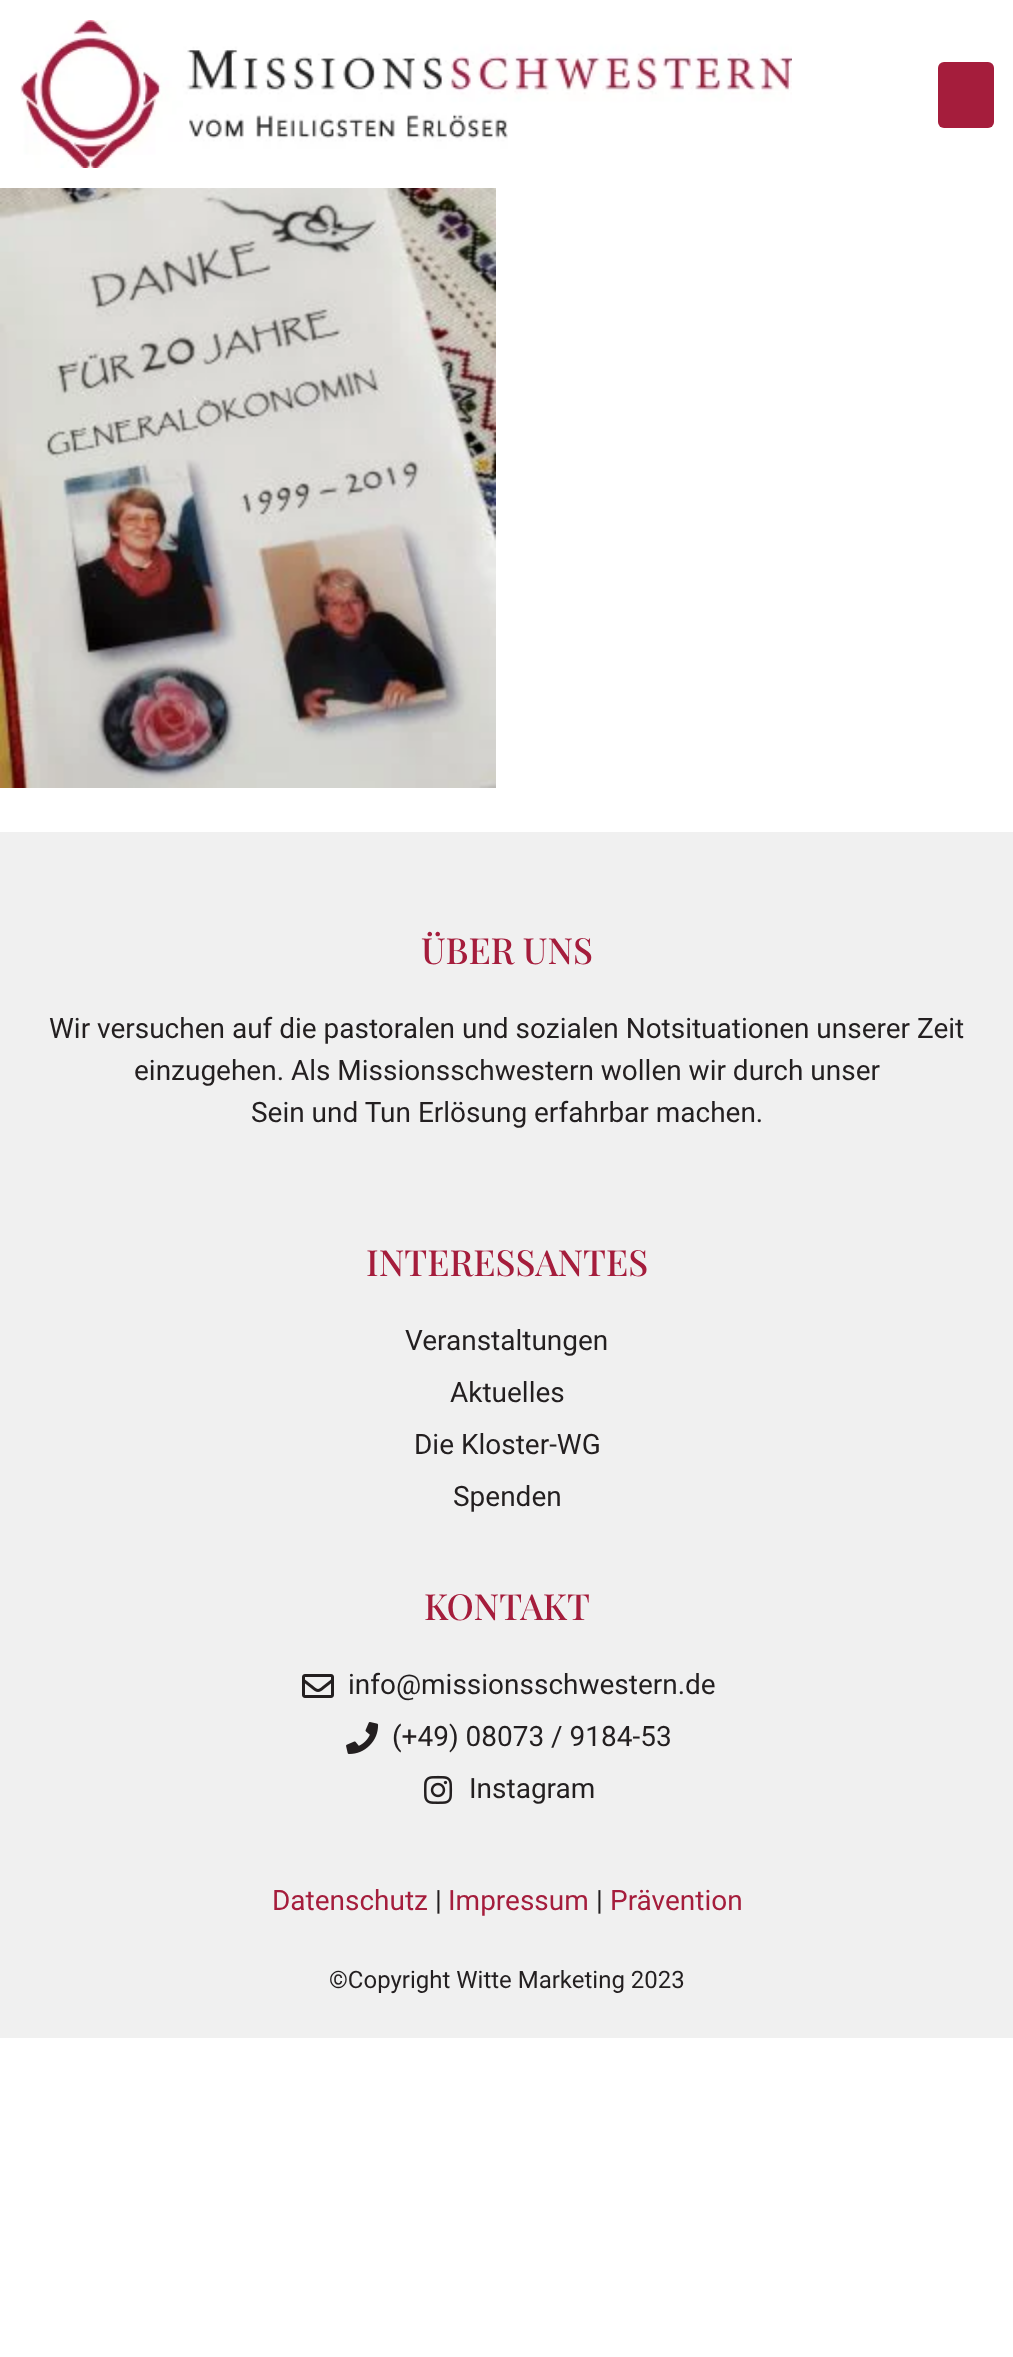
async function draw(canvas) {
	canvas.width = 1013;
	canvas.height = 2357;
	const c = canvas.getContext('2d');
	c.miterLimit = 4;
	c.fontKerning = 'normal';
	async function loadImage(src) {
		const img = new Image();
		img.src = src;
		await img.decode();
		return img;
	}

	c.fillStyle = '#fff';
	c.fillRect(0, 0, 1013, 2357);
	c.drawImage(await loadImage('img1.png'), 20, 20, 772, 148);
	c.fillStyle = '#a51d3c';
	c.beginPath();
	c.roundRect(938, 62, 56, 66, 6);
	c.fill();
	c.drawImage(await loadImage('img2.png'), 0, 188, 496, 600);
	c.fillStyle = '#f0f0f0';
	c.fillRect(0, 832, 1013, 1206);
	c.font = '500 36px Playfair Display';
	c.fillStyle = '#a51d3c';
	c.fillText('ÜBER UNS', 421, 964);
	c.font = '28px Roboto';
	c.fillStyle = '#231f20';
	for (const [text, x, y] of [
		['Wir versuchen auf die pastoralen und sozialen Notsituationen unserer Zeit', 49, 1038],
		['einzugehen. Als Missionsschwestern wollen wir durch unser', 134, 1080],
		['Sein und Tun Erlösung erfahrbar machen.', 251, 1122],
	]) {
		c.fillText(text, x, y);
	}
	c.font = '500 36px Playfair Display';
	c.fillStyle = '#a51d3c';
	c.fillText('INTERESSANTES', 366, 1276);
	c.font = '28px Roboto';
	c.fillStyle = '#231f20';
	for (const [text, x, y] of [
		['Veranstaltungen', 405, 1350],
		['Aktuelles', 450, 1402],
		['Die Kloster-WG', 414, 1454],
		['Spenden', 453, 1506],
	]) {
		c.fillText(text, x, y);
	}
	c.font = '500 36px Playfair Display';
	c.fillStyle = '#a51d3c';
	c.fillText('KONTAKT', 424, 1620);
	c.drawImage(await loadImage('img3.png'), 302, 1674, 32, 24);
	c.font = '28px Roboto';
	c.fillStyle = '#231f20';
	c.fillText('info@missionsschwestern.de', 348, 1694);
	c.drawImage(await loadImage('img4.png'), 346, 1722, 33, 32);
	c.fillText('(+49) 08073 / 9184-53', 392, 1746);
	c.drawImage(await loadImage('img5.png'), 424, 1775, 29, 29);
	c.fillText('Instagram', 469, 1798);
	c.fillStyle = '#a51d3c';
	c.fillText('Datenschutz', 272, 1910);
	c.fillStyle = '#231f20';
	c.fillText('|', 435, 1910);
	c.fillStyle = '#a51d3c';
	c.fillText('Impressum', 448, 1910);
	c.fillStyle = '#231f20';
	c.fillText('|', 596, 1910);
	c.fillStyle = '#a51d3c';
	c.fillText('Prävention', 610, 1910);
	c.font = '24px Roboto';
	c.fillStyle = '#231f20';
	c.fillText('©Copyright Witte Marketing 2023', 329, 1988);
}

draw(document.querySelector('canvas'));
